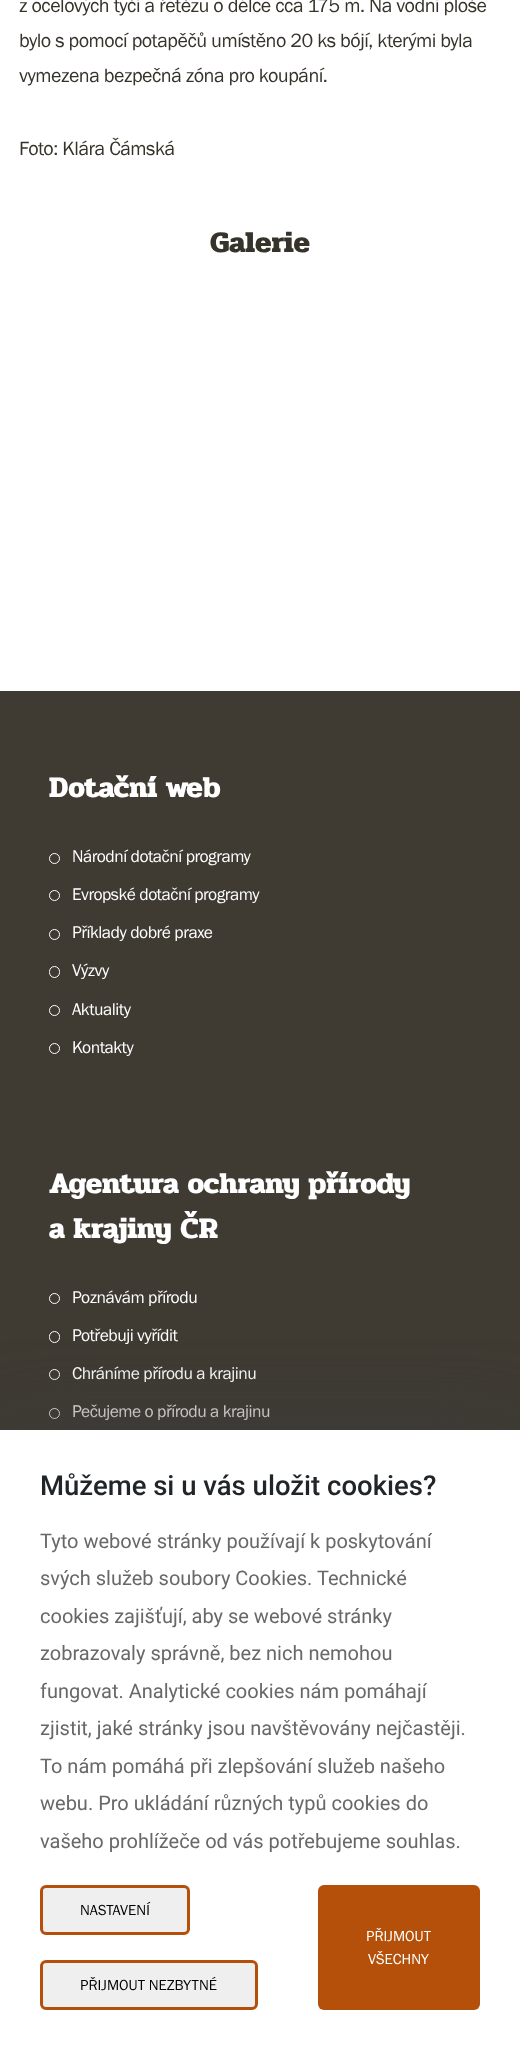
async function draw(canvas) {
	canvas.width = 520;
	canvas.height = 2049;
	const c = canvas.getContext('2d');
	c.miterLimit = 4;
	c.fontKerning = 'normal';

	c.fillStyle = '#fff';
	c.fillRect(0, 0, 520, 2049);
	c.letterSpacing = '-0.5px';
	c.font = '20px Franklin Gothic';
	c.fillStyle = '#36332a';
	for (const [text, x, y] of [
		['z ocelových tyčí a řetězu o délce cca 175 m. Na vodní ploše', 19, 12],
		['bylo s pomocí potapěčů umístěno 20 ks bójí, kterými byla', 19, 47],
		['vymezena bezpečná zóna pro koupání.', 19, 82],
		['Foto: Klára Čámská', 19, 155],
	]) {
		c.fillText(text, x, y);
	}
	c.letterSpacing = '0px';
	c.font = 'bold 30px Pridi';
	c.fillText('Galerie', 210, 252);
	c.fillStyle = '#3f3b33';
	c.fillRect(0, 691, 520, 739);
	c.fillStyle = '#fff';
	c.fillText('Dotační web', 49, 797);
	c.beginPath();
	c.arc(54.5, 858.5, 5, 0, 2 * Math.PI);
	c.strokeStyle = '#fff';
	c.stroke();
	c.letterSpacing = '-0.5px';
	c.font = '17.5px Franklin Gothic';
	c.fillText('Národní dotační programy', 72, 862);
	c.beginPath();
	c.arc(54.5, 895.5, 5, 0, 2 * Math.PI);
	c.stroke();
	c.fillText('Evropské dotační programy', 72, 900);
	c.beginPath();
	c.arc(54.5, 934.5, 5, 0, 2 * Math.PI);
	c.stroke();
	c.fillText('Příklady dobré praxe', 72, 938);
	c.beginPath();
	c.roundRect(49.5, 966.5, 10, 11, 5);
	c.stroke();
	c.fillText('Výzvy', 72, 976);
	c.beginPath();
	c.arc(54.5, 1010.5, 5, 0, 2 * Math.PI);
	c.stroke();
	c.fillText('Aktuality', 72, 1015);
	c.beginPath();
	c.arc(54.5, 1048.5, 5, 0, 2 * Math.PI);
	c.stroke();
	c.fillText('Kontakty', 72, 1053);
	c.letterSpacing = '0px';
	c.font = 'bold 30px Pridi';
	c.fillText('Agentura ochrany přírody', 49, 1193);
	c.fillText('a krajiny ČR', 49, 1238);
	c.beginPath();
	c.arc(54.5, 1298.5, 5, 0, 2 * Math.PI);
	c.stroke();
	c.letterSpacing = '-0.5px';
	c.font = '17.5px Franklin Gothic';
	c.fillText('Poznávám přírodu', 72, 1303);
	c.beginPath();
	c.roundRect(49.5, 1331.5, 10, 11, 5);
	c.stroke();
	c.fillText('Potřebuji vyřídit', 72, 1341);
	c.beginPath();
	c.arc(54.5, 1374.5, 5, 0, 2 * Math.PI);
	c.stroke();
	c.fillText('Chráníme přírodu a krajinu', 72, 1379);
	c.beginPath();
	c.arc(54.5, 1413.5, 5, 0, 2 * Math.PI);
	c.stroke();
	c.fillText('Pečujeme o přírodu a krajinu', 72, 1417);
	c.fillStyle = '#3b3b3b';
	c.filter = 'blur(40px)';
	c.beginPath();
	c.rect(0, 1433, 520, 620);
	c.fill();
	c.filter = 'none';
	c.fillStyle = '#fff';
	c.fillRect(0, 1430, 520, 619);
	c.letterSpacing = '0px';
	c.font = '500 27.5px Roboto';
	c.fillStyle = '#212529';
	c.fillText('Můžeme si u vás uložit cookies?', 40, 1495);
	c.font = '20px Roboto';
	c.fillStyle = '#686868';
	for (const [text, x, y] of [
		['Tyto webové stránky používají k poskytování', 40, 1548],
		['svých služeb soubory Cookies. Technické', 40, 1585],
		['cookies zajišťují, aby se webové stránky', 40, 1623],
		['zobrazovaly správně, bez nich nemohou', 40, 1660],
		['fungovat. Analytické cookies nám pomáhají', 40, 1698],
		['zjistit, jaké stránky jsou navštěvovány nejčastěji.', 40, 1735],
		['To nám pomáhá při zlepšování služeb našeho', 40, 1773],
		['webu. Pro ukládání různých typů cookies do', 40, 1810],
		['vašeho prohlížeče od vás potřebujeme souhlas.', 40, 1848],
	]) {
		c.fillText(text, x, y);
	}
	c.fillStyle = '#efefef';
	c.beginPath();
	c.roundRect(41.5, 1886.5, 147, 47, 4.5);
	c.fill();
	c.strokeStyle = '#b4500a';
	c.lineWidth = 3;
	c.stroke();
	c.font = '15px Franklin Gothic';
	c.fillStyle = '#000';
	c.fillText('NASTAVENÍ', 80, 1915);
	c.fillStyle = '#efefef';
	c.beginPath();
	c.roundRect(41.5, 1961.5, 215, 47, 4.5);
	c.fill();
	c.stroke();
	c.fillStyle = '#000';
	c.fillText('PŘIJMOUT NEZBYTNÉ', 80, 1990);
	c.fillStyle = '#b4500a';
	c.beginPath();
	c.roundRect(318, 1885, 162, 125, 6);
	c.fill();
	c.fillStyle = '#fff';
	c.fillText('PŘIJMOUT', 366, 1941);
	c.fillText('VŠECHNY', 368, 1964);
}

draw(document.querySelector('canvas'));
